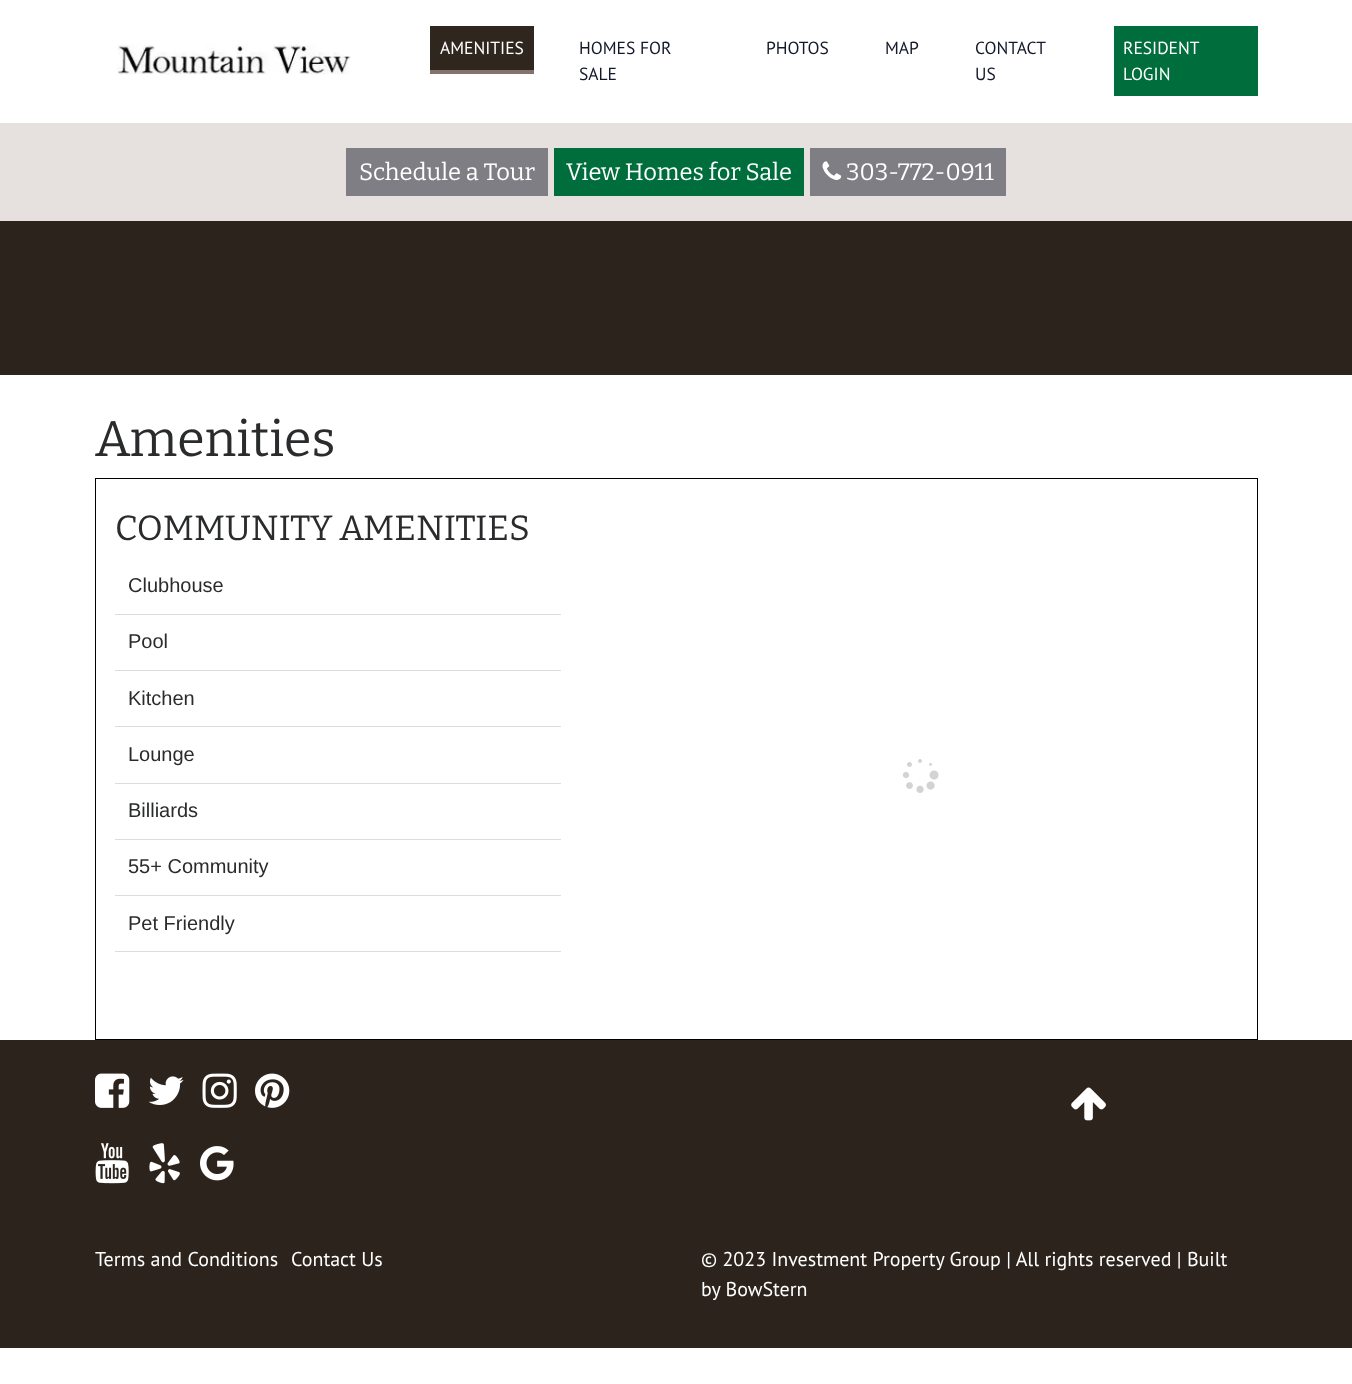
async function draw(canvas) {
	canvas.width = 1352;
	canvas.height = 1384;
	const c = canvas.getContext('2d');
	c.miterLimit = 4;
	c.fontKerning = 'normal';
	async function loadImage(src) {
		const img = new Image();
		img.src = src;
		await img.decode();
		return img;
	}

	c.fillStyle = '#fff';
	c.fillRect(0, 0, 1352, 1384);
	c.drawImage(await loadImage('img1.png'), 117, 44, 234, 31);
	c.fillStyle = '#2f261d';
	c.fillRect(430, 26, 104, 44);
	c.fillStyle = '#84736c';
	c.fillRect(430, 70, 104, 4);
	c.font = '17.5px PT Sans';
	c.fillStyle = '#fff';
	c.fillText('AMENITIES', 440, 54);
	c.fillStyle = '#14182a';
	for (const [text, x, y] of [
		['HOMES FOR', 579, 54],
		['SALE', 579, 80],
		['PHOTOS', 766, 54],
		['MAP', 885, 54],
		['CONTACT', 975, 54],
		['US', 975, 80],
	]) {
		c.fillText(text, x, y);
	}
	c.fillStyle = '#006e3c';
	c.fillRect(1114, 26, 144, 70);
	c.fillStyle = '#fff';
	c.fillText('RESIDENT', 1123, 54);
	c.fillText('LOGIN', 1123, 80);
	c.fillStyle = '#e6e1de';
	c.fillRect(0, 123, 1352, 98);
	c.fillStyle = '#7f7e85';
	c.fillRect(346, 148, 202, 48);
	c.font = '100 23.75px Bitter';
	c.fillStyle = '#fff';
	c.fillText('Schedule a Tour', 359, 180);
	c.fillStyle = '#006e3c';
	c.fillRect(554, 148, 250, 48);
	c.fillStyle = '#fff';
	c.fillText('View Homes for Sale', 566, 180);
	c.fillStyle = '#7f7e85';
	c.fillRect(810, 148, 196, 48);
	c.drawImage(await loadImage('img2.png'), 822, 161, 20, 19);
	c.fillStyle = '#fff';
	c.fillText('303-772-0911', 846, 180);
	c.fillStyle = '#2c231c';
	c.fillRect(0, 221, 1352, 154);
	c.font = '100 50px Bitter';
	c.fillStyle = '#292b2c';
	c.fillText('Amenities', 95, 456);
	c.strokeStyle = '#000';
	c.strokeRect(95.5, 478.5, 1162, 561);
	c.font = '100 35px Bitter';
	c.fillText('COMMUNITY AMENITIES', 115, 540);
	c.fillStyle = '#ddd';
	c.fillRect(115, 614, 446, 1);
	c.font = '20px Liberation Sans';
	c.fillStyle = '#292b2c';
	c.fillText('Clubhouse', 128, 592);
	c.fillStyle = '#ddd';
	c.fillRect(115, 670, 446, 1);
	c.fillStyle = '#292b2c';
	c.fillText('Pool', 128, 648);
	c.fillStyle = '#ddd';
	c.fillRect(115, 726, 446, 1);
	c.fillStyle = '#292b2c';
	c.fillText('Kitchen', 128, 705);
	c.fillStyle = '#ddd';
	c.fillRect(115, 783, 446, 1);
	c.fillStyle = '#292b2c';
	c.fillText('Lounge', 128, 761);
	c.fillStyle = '#ddd';
	c.fillRect(115, 839, 446, 1);
	c.fillStyle = '#292b2c';
	c.fillText('Billiards', 128, 817);
	c.fillStyle = '#ddd';
	c.fillRect(115, 895, 446, 1);
	c.fillStyle = '#292b2c';
	c.fillText('55+ Community', 128, 873);
	c.fillStyle = '#ddd';
	c.fillRect(115, 951, 446, 1);
	c.fillStyle = '#292b2c';
	c.fillText('Pet Friendly', 128, 930);
	c.drawImage(await loadImage('img3.png'), 902, 759, 37, 34);
	c.fillStyle = '#2c231c';
	c.fillRect(0, 1040, 1352, 308);
	c.drawImage(await loadImage('img4.png'), 95, 1073, 35, 35);
	c.drawImage(await loadImage('img5.png'), 148, 1076, 36, 29);
	c.drawImage(await loadImage('img6.png'), 202, 1073, 35, 35);
	c.drawImage(await loadImage('img7.png'), 255, 1073, 35, 35);
	c.drawImage(await loadImage('img8.png'), 95, 1143, 34, 41);
	c.drawImage(await loadImage('img9.png'), 149, 1143, 31, 41);
	c.drawImage(await loadImage('img10.png'), 200, 1146, 34, 35);
	c.drawImage(await loadImage('img11.png'), 1071, 1087, 35, 34);
	c.font = '20px PT Sans';
	c.fillStyle = '#fff';
	for (const [text, x, y] of [
		['Terms and Conditions', 95, 1266],
		['Contact Us', 291, 1266],
		['© 2023 Investment Property Group | All rights reserved | Built', 701, 1266],
		['by BowStern', 701, 1296],
	]) {
		c.fillText(text, x, y);
	}
}

draw(document.querySelector('canvas'));
